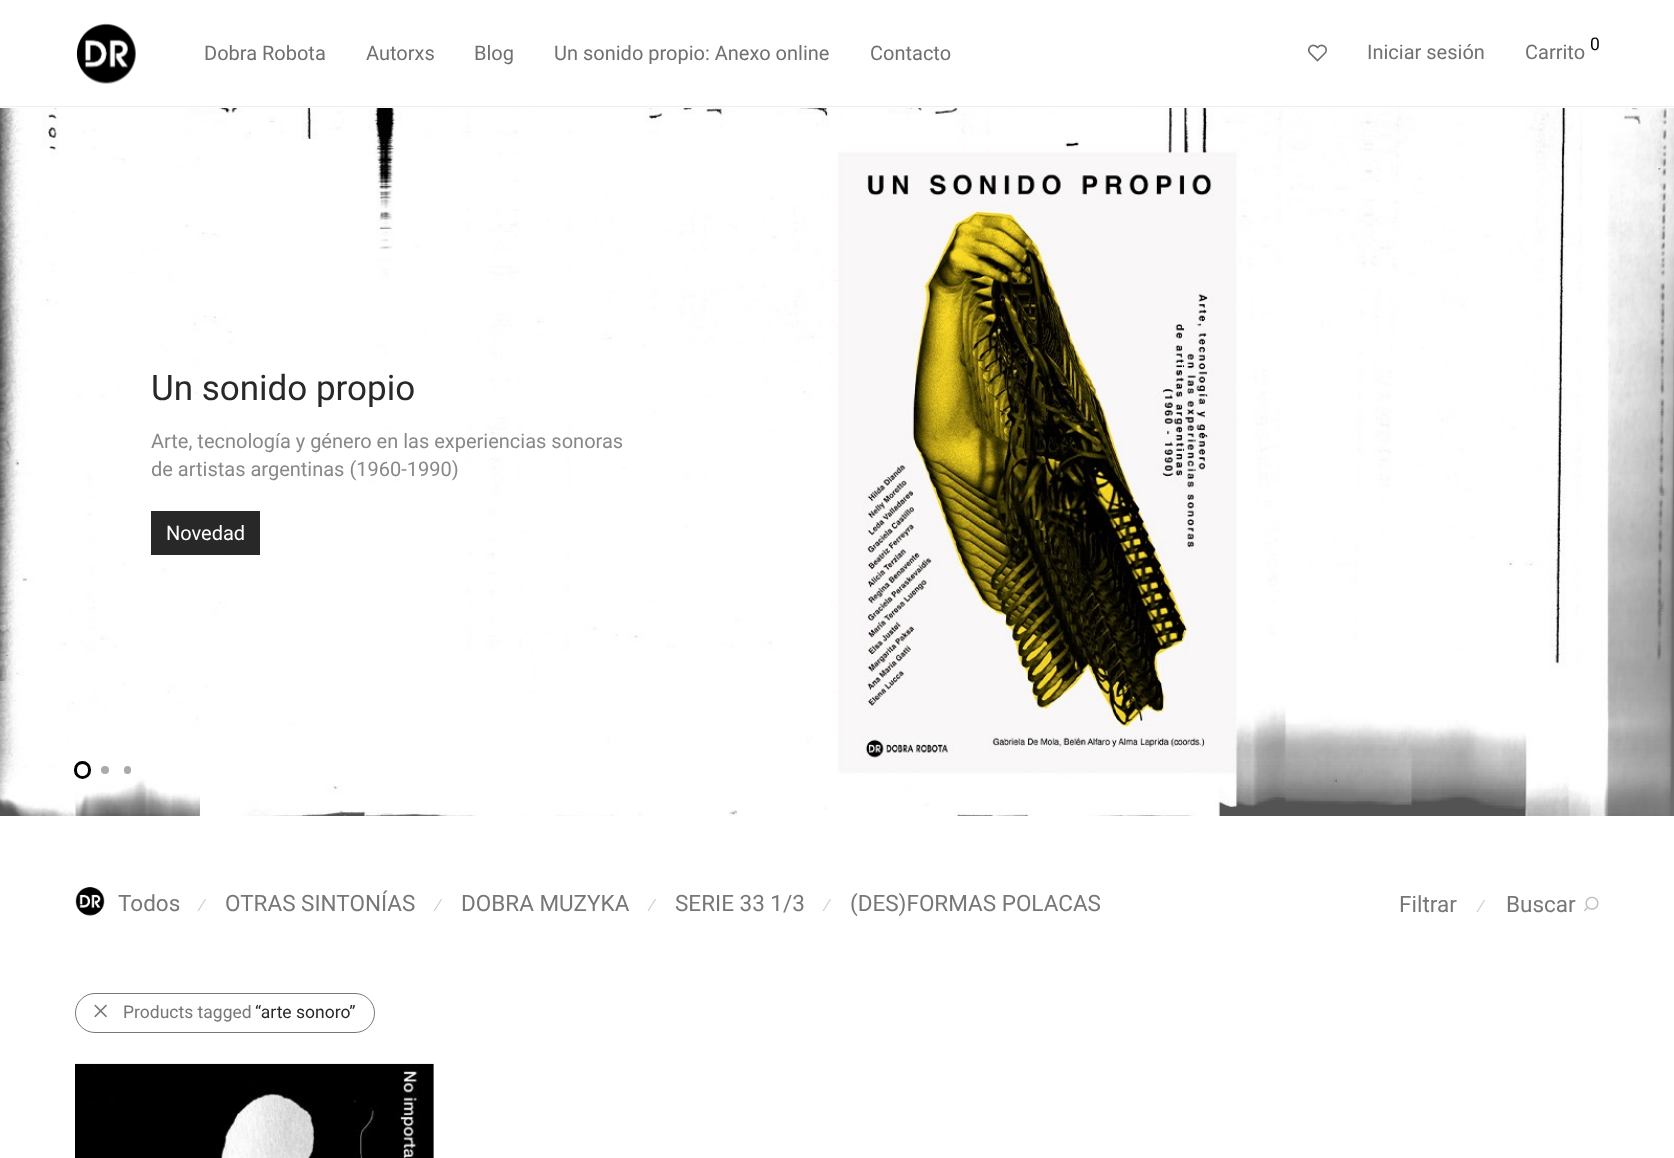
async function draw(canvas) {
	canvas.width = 1674;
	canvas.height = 1158;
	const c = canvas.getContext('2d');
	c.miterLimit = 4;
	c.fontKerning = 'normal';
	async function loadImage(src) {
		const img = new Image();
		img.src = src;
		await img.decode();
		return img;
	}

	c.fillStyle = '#fff';
	c.fillRect(0, 0, 1674, 1158);
	c.fillStyle = '#eee';
	c.fillRect(0, 106, 1674, 1);
	c.drawImage(await loadImage('img1.png'), 76, 23, 60, 61);
	c.font = '20px Roboto';
	c.fillStyle = '#707070';
	for (const [text, x, y] of [
		['Dobra Robota', 204, 60],
		['Autorxs', 366, 60],
		['Blog', 474, 60],
		['Un sonido propio: Anexo online', 554, 60],
		['Contacto', 870, 60],
	]) {
		c.fillText(text, x, y);
	}
	c.drawImage(await loadImage('img2.png'), 1307, 44, 20, 18);
	c.fillText('Iniciar sesión', 1367, 59);
	c.fillText('Carrito', 1525, 59);
	c.font = '17.5px Roboto';
	c.fillStyle = '#000';
	c.fillText('0', 1590, 50);
	c.drawImage(await loadImage('img3.png'), 0, 108, 1674, 708);
	c.font = '35px Roboto';
	c.fillStyle = '#282828';
	c.fillText('Un sonido propio', 151, 400);
	c.font = '20px Roboto';
	c.fillStyle = '#888';
	c.fillText('Arte, tecnología y género en las experiencias sonoras', 151, 448);
	c.fillText('de artistas argentinas (1960-1990)', 151, 476);
	c.fillStyle = '#282828';
	c.fillRect(151, 511, 109, 44);
	c.fillStyle = '#fff';
	c.fillText('Novedad', 166, 540);
	c.beginPath();
	c.roundRect(75.5, 762.5, 14, 15, 7);
	c.strokeStyle = '#000';
	c.lineWidth = 3;
	c.stroke();
	c.fillStyle = '#aaa';
	c.beginPath();
	c.arc(105, 770, 4, 0, 2 * Math.PI);
	c.fill();
	c.beginPath();
	c.roundRect(124, 766, 7, 8, 3.5);
	c.fill();
	c.drawImage(await loadImage('img4.png'), 75, 887, 30, 29);
	c.font = '22.5px Roboto';
	c.fillStyle = '#777';
	c.fillText('Todos', 118, 911);
	c.font = '17.5px Liberation Sans';
	c.fillStyle = '#ccc';
	c.fillText('⁄', 201, 911);
	c.font = '22.5px Roboto';
	c.fillStyle = '#777';
	c.fillText('OTRAS SINTONÍAS', 225, 911);
	c.font = '17.5px Liberation Sans';
	c.fillStyle = '#ccc';
	c.fillText('⁄', 437, 911);
	c.font = '22.5px Roboto';
	c.fillStyle = '#777';
	c.fillText('DOBRA MUZYKA', 461, 911);
	c.font = '17.5px Liberation Sans';
	c.fillStyle = '#ccc';
	c.fillText('⁄', 651, 911);
	c.font = '22.5px Roboto';
	c.fillStyle = '#777';
	c.fillText('SERIE 33 1/3', 675, 911);
	c.font = '17.5px Liberation Sans';
	c.fillStyle = '#ccc';
	c.fillText('⁄', 826, 911);
	c.font = '22.5px Roboto';
	c.fillStyle = '#777';
	c.fillText('(DES)FORMAS POLACAS', 850, 911);
	c.fillText('Filtrar', 1399, 912);
	c.font = '17.5px Liberation Sans';
	c.fillStyle = '#ccc';
	c.fillText('⁄', 1480, 912);
	c.font = '22.5px Roboto';
	c.fillStyle = '#777';
	c.fillText('Buscar', 1506, 912);
	c.drawImage(await loadImage('img5.png'), 1584, 896, 15, 16);
	c.beginPath();
	c.roundRect(75.5, 993.5, 299, 39, 19.5);
	c.strokeStyle = '#777';
	c.lineWidth = 1;
	c.stroke();
	c.drawImage(await loadImage('img6.png'), 94, 1004, 13, 14);
	c.font = '17.5px Roboto';
	c.fillText('Products tagged', 123, 1018);
	c.fillStyle = '#282828';
	c.fillText('“arte sonoro”', 255, 1018);
	c.fillStyle = '#eee';
	c.fillRect(433, 1064, 1, 94);
	c.drawImage(await loadImage('img7.png'), 75, 1063, 359, 95);
}

draw(document.querySelector('canvas'));
